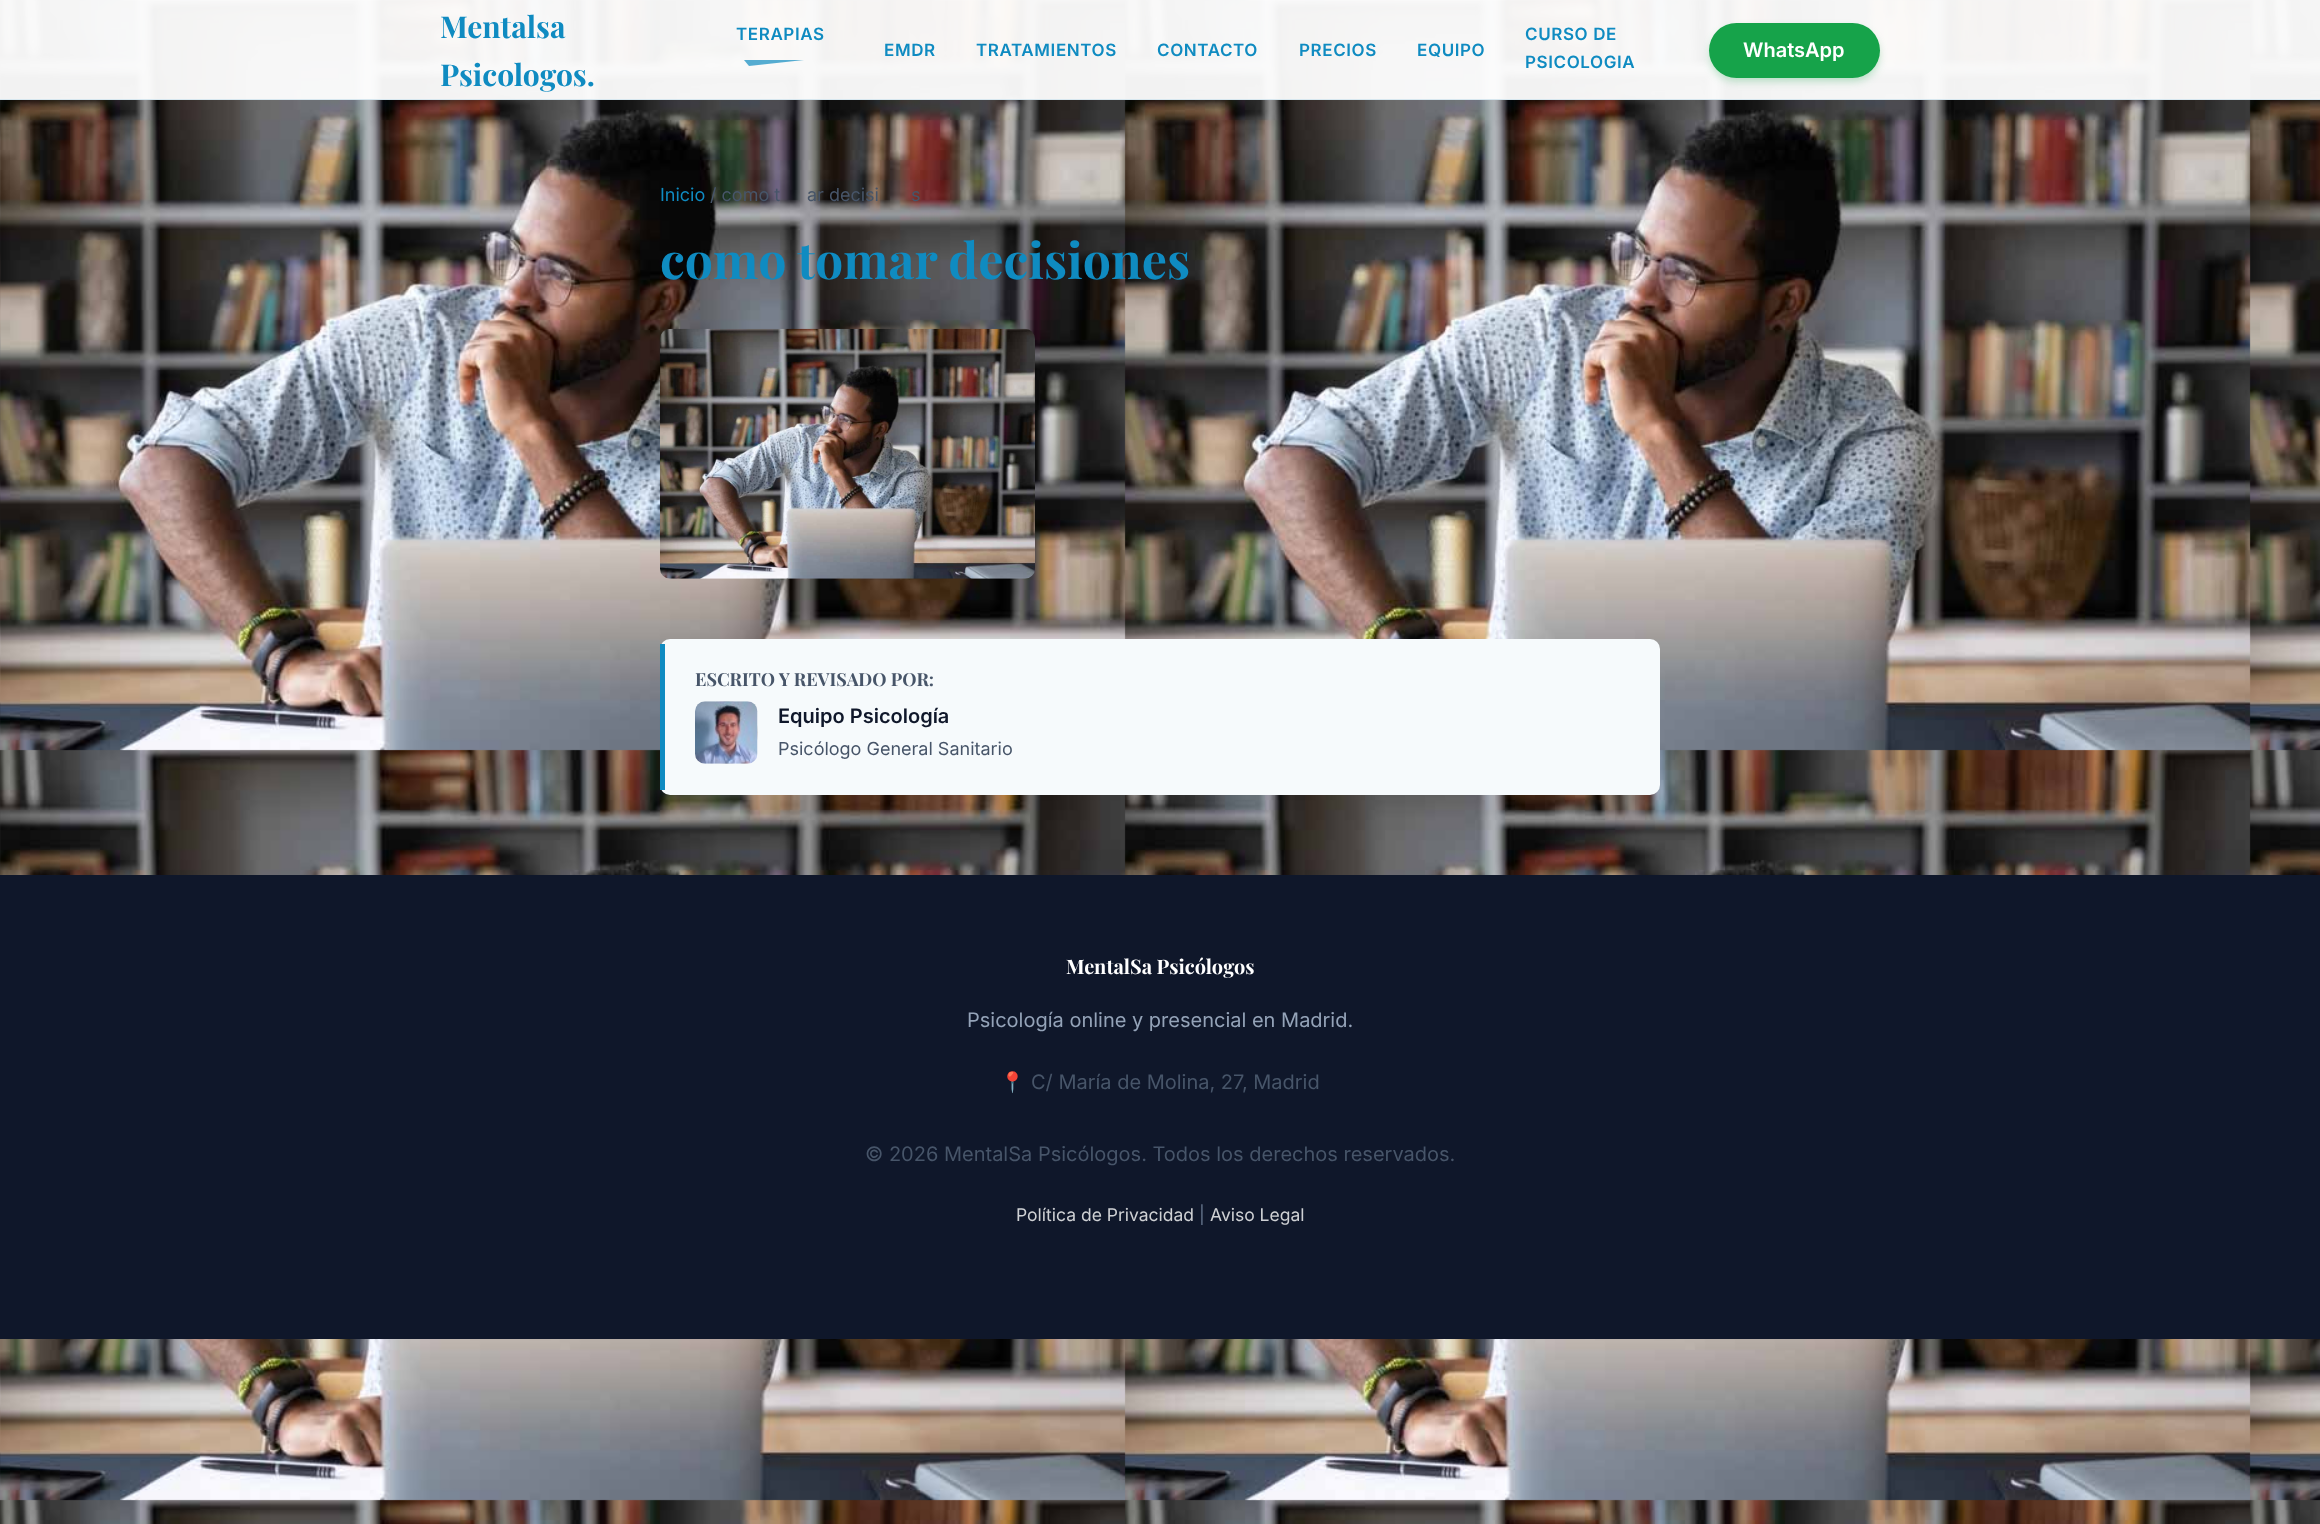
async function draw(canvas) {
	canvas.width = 2320;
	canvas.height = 1524;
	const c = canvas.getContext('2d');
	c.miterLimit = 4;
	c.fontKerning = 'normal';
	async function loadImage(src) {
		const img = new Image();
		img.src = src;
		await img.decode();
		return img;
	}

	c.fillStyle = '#fff';
	c.fillRect(0, 0, 2320, 1524);
	c.drawImage(await loadImage('img1.png'), 0, 0, 2320, 1524);
	c.fillStyle = '#fffffff2';
	c.fillRect(0, 0, 2320, 99);
	c.fillStyle = '#d7e7ef';
	c.fillRect(0, 99, 2320, 1);
	c.font = 'bold 30px Playfair Display';
	c.fillStyle = '#0f8bc1';
	c.fillText('Mentalsa', 440, 38);
	c.fillText('Psicologos.', 440, 86);
	c.letterSpacing = '0.6px';
	c.font = '600 17px Inter';
	c.fillText('TERAPIAS', 736, 40);
	c.fillStyle = '#0f8bc1b3';
	c.beginPath();
	c.moveTo(744, 60);
	c.lineTo(804, 60);
	c.lineTo(749, 66);
	c.closePath();
	c.fill();
	c.fillStyle = '#0f8bc1';
	for (const [text, x, y] of [
		['EMDR', 884, 56],
		['TRATAMIENTOS', 976, 56],
		['CONTACTO', 1157, 56],
		['PRECIOS', 1299, 56],
		['EQUIPO', 1417, 56],
		['CURSO DE', 1525, 40],
		['PSICOLOGIA', 1525, 68],
	]) {
		c.fillText(text, x, y);
	}
	c.fillStyle = '#16a34a4d';
	c.filter = 'blur(4px)';
	c.beginPath();
	c.roundRect(1710, 29, 169, 52, 26);
	c.fill();
	c.filter = 'none';
	c.fillStyle = '#16a34a';
	c.beginPath();
	c.roundRect(1709, 23, 171, 55, 27.5);
	c.fill();
	c.letterSpacing = '0px';
	c.font = '600 20px Inter';
	c.fillStyle = '#fff';
	c.fillText('WhatsApp', 1743, 57);
	c.font = '18px Inter';
	c.fillStyle = '#0f8bc1';
	c.fillText('Inicio', 660, 201);
	c.fillStyle = '#475569';
	for (const [text, x, y] of [
		['/ como t', 710, 201],
		['ar decisi', 807, 201],
		['s', 911, 201],
	]) {
		c.fillText(text, x, y);
	}
	c.font = 'bold 50px Playfair Display';
	c.fillStyle = '#0f8bc1';
	c.fillText('como tomar decisiones', 660, 279);
	c.drawImage(await loadImage('img2.png'), 660, 328, 375, 251);
	c.fillStyle = '#f6fafc';
	c.beginPath();
	c.roundRect(660, 639, 1000, 156, 10);
	c.fill();
	c.fillStyle = '#0f8bc1';
	c.fillRect(660, 644, 5, 146);
	c.font = 'bold 18px Playfair Display';
	c.fillStyle = '#475569';
	c.fillText('ESCRITO Y REVISADO POR:', 695, 686);
	c.fillStyle = '#ddd';
	c.beginPath();
	c.arc(726.5, 732.5, 31.5, 0, 2 * Math.PI);
	c.fill();
	c.drawImage(await loadImage('img3.png'), 695, 701, 63, 63);
	c.font = '600 20px Inter';
	c.fillStyle = '#0f172a';
	c.fillText('Equipo Psicología', 778, 723);
	c.font = '18px Inter';
	c.fillStyle = '#475569';
	c.fillText('Psicólogo General Sanitario', 778, 755);
	c.fillStyle = '#0f172a';
	c.fillRect(0, 875, 2320, 464);
	c.font = 'bold 20px Playfair Display';
	c.fillStyle = '#fff';
	c.fillText('MentalSa Psicólogos', 1066, 974);
	c.font = '20px Inter';
	c.fillStyle = '#94a3b8';
	c.fillText('Psicología online y presencial en Madrid.', 967, 1027);
	c.font = '20px Noto Color Emoji';
	c.fillStyle = '#475569';
	c.fillText('📍', 1000, 1089);
	c.font = '20px Inter';
	c.fillText('C/ María de Molina, 27, Madrid', 1031, 1089);
	c.fillText('© 2026 MentalSa Psicólogos. Todos los derechos reservados.', 865, 1161);
	c.font = '17.5px Inter';
	c.fillStyle = '#cfd1d4';
	c.fillText('Política de Privacidad', 1016, 1221);
	c.fillStyle = '#64748b';
	c.fillText('|', 1199, 1221);
	c.fillStyle = '#cfd1d4';
	c.fillText('Aviso Legal', 1210, 1221);
}

draw(document.querySelector('canvas'));
